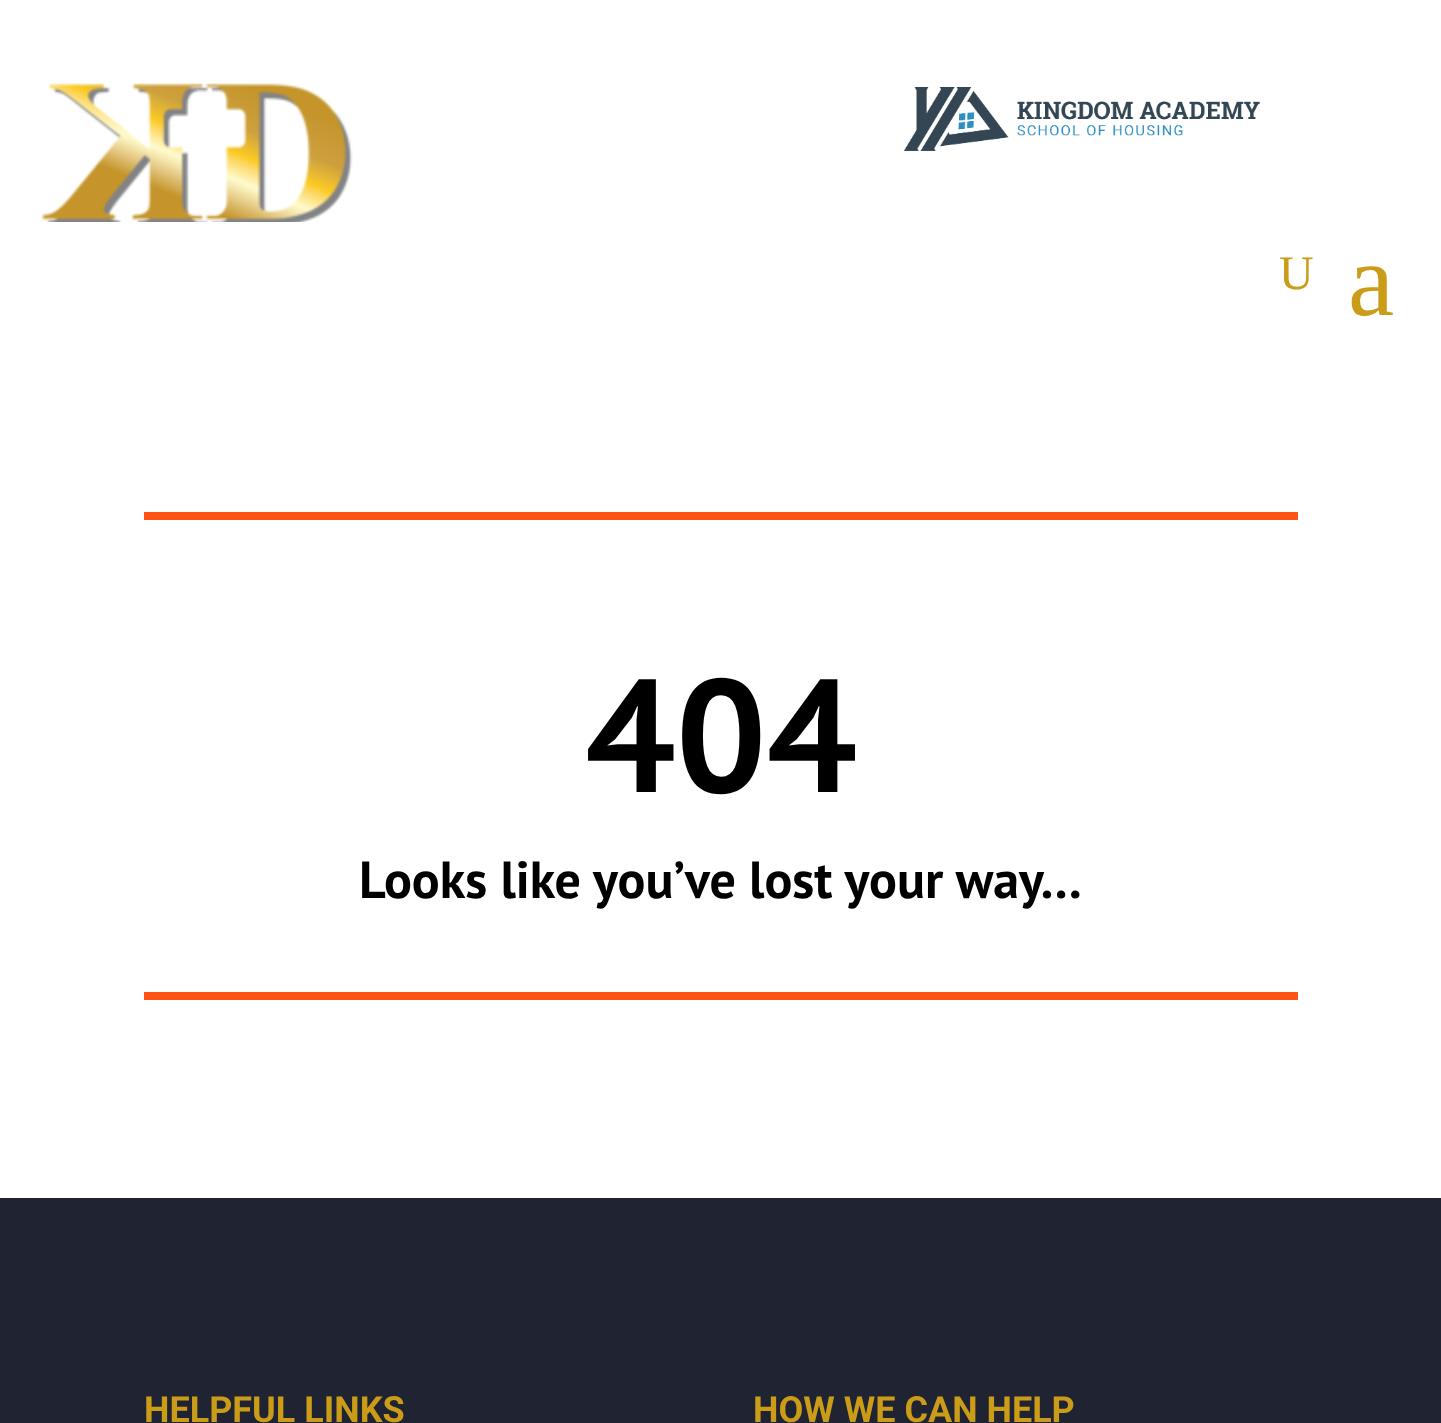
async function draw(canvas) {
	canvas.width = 1441;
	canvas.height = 1423;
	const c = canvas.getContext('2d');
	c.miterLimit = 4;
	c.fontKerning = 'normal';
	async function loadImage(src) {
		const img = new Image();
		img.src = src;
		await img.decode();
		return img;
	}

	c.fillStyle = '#fff';
	c.fillRect(0, 0, 1441, 1423);
	c.drawImage(await loadImage('img1.png'), 41, 83, 312, 139);
	c.drawImage(await loadImage('img2.png'), 904, 87, 356, 64);
	c.font = '48px Liberation Serif';
	c.fillStyle = '#ca9c18';
	c.fillText('U', 1279, 289);
	c.font = '104px Liberation Serif';
	c.fillText('a', 1348, 315);
	c.fillStyle = '#ff5315';
	c.fillRect(144, 512, 1154, 8);
	c.font = 'bold 160px PT Sans';
	c.fillStyle = '#000';
	c.fillText('404', 585, 792);
	c.font = 'bold 52px PT Sans';
	c.fillText('Looks like you’ve lost your way…', 359, 898);
	c.fillStyle = '#ff5315';
	c.fillRect(144, 992, 1154, 8);
	c.fillStyle = '#202332';
	c.fillRect(0, 1198, 1441, 225);
	c.font = 'bold 36px Roboto';
	c.fillStyle = '#ca9c18';
	c.fillText('HELPFUL LINKS', 144, 1422);
	c.fillText('HOW WE CAN HELP', 753, 1422);
}

draw(document.querySelector('canvas'));
